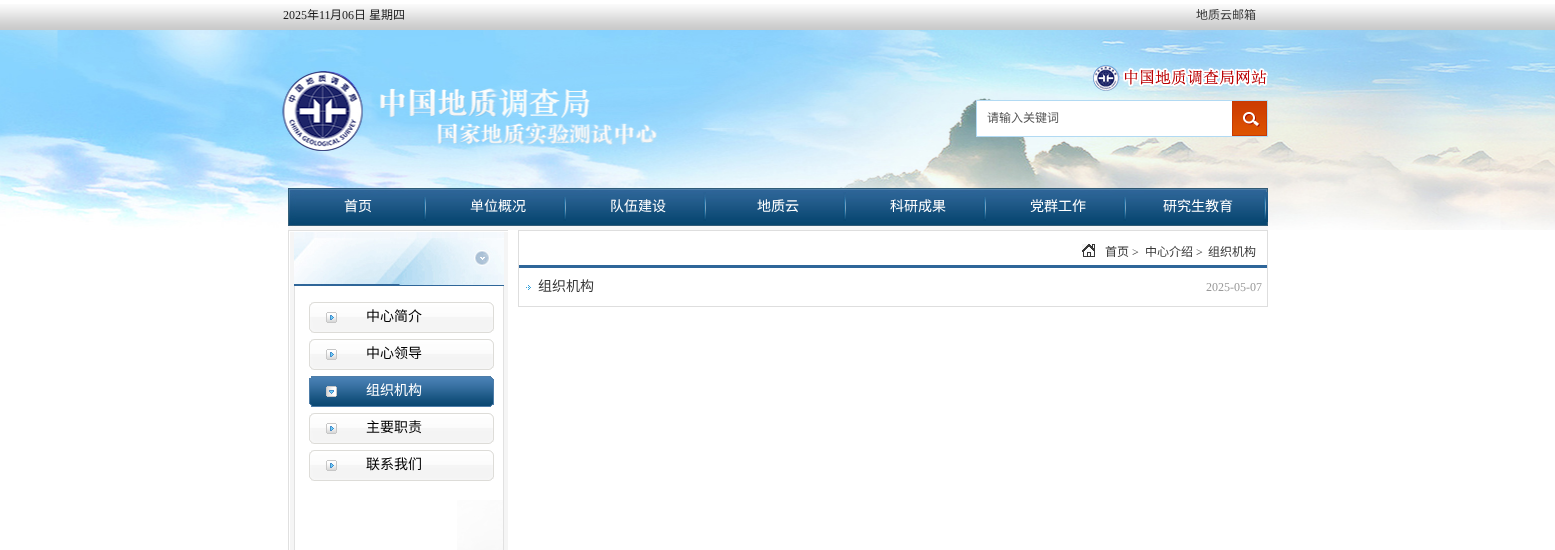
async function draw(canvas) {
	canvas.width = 1555;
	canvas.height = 550;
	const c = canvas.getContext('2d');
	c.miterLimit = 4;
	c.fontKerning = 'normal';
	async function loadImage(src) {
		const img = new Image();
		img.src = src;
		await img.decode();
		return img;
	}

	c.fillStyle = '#fff';
	c.fillRect(0, 0, 1555, 550);
	c.drawImage(await loadImage('img1.png'), 0, 30, 1555, 200);
	c.drawImage(await loadImage('img2.png'), 0, 4, 1555, 26);
	c.font = '12px Liberation Serif';
	c.fillStyle = '#1b1b1b';
	c.fillText('2025', 283, 19);
	c.font = '12px Noto Sans CJK SC';
	c.fillText('年', 307, 19);
	c.font = '12px Liberation Serif';
	c.fillText('11', 319, 19);
	c.font = '12px Noto Sans CJK SC';
	c.fillText('月', 330, 19);
	c.font = '12px Liberation Serif';
	c.fillText('06', 342, 19);
	c.font = '12px Noto Sans CJK SC';
	c.fillText('日', 354, 19);
	c.fillText('星期四', 369, 19);
	c.fillStyle = '#383838';
	c.fillText('地质云邮箱', 1196, 19);
	c.drawImage(await loadImage('img3.png'), 1093, 65, 175, 26);
	c.strokeStyle = '#b2daf3';
	c.strokeRect(976.5, 100.5, 291, 36);
	c.fillStyle = '#fff';
	c.fillRect(977, 101, 255, 35);
	c.fillStyle = '#555';
	c.fillText('请输入关键词', 987, 122);
	c.drawImage(await loadImage('img4.png'), 1232, 101, 35, 35);
	c.drawImage(await loadImage('img5.png'), 288, 188, 980, 42);
	c.drawImage(await loadImage('img6.png'), 423, 197, 3, 24);
	c.font = '14px Noto Sans CJK SC';
	c.fillStyle = '#fff';
	c.fillText('首页', 344, 211);
	c.drawImage(await loadImage('img6.png'), 563, 197, 3, 24);
	c.fillText('单位概况', 470, 211);
	c.drawImage(await loadImage('img7.png'), 703, 192, 3, 29);
	c.fillText('队伍建设', 610, 211);
	c.drawImage(await loadImage('img7.png'), 843, 192, 3, 29);
	c.fillText('地质云', 757, 211);
	c.drawImage(await loadImage('img6.png'), 983, 197, 3, 24);
	c.fillText('科研成果', 890, 211);
	c.drawImage(await loadImage('img6.png'), 1123, 197, 3, 24);
	c.fillText('党群工作', 1030, 211);
	c.drawImage(await loadImage('img8.png'), 1263, 192, 5, 30);
	c.fillText('研究生教育', 1163, 211);
	c.strokeStyle = '#dedede';
	c.strokeRect(518.5, 230.5, 749, 76);
	c.drawImage(await loadImage('img9.png'), 1082, 244, 13, 13);
	c.font = '12px Noto Sans CJK SC';
	c.fillStyle = '#383838';
	c.fillText('首页', 1105, 256);
	c.font = '12px Liberation Serif';
	c.fillText('>', 1132, 256);
	c.font = '12px Noto Sans CJK SC';
	c.fillText('中心介绍', 1145, 256);
	c.font = '12px Liberation Serif';
	c.fillText('>', 1196, 256);
	c.font = '12px Noto Sans CJK SC';
	c.fillText('组织机构', 1208, 256);
	c.fillStyle = '#2f6699';
	c.fillRect(519, 265, 748, 3);
	c.drawImage(await loadImage('img10.png'), 526, 285, 5, 5);
	c.font = '14px Noto Sans CJK SC';
	c.fillStyle = '#383838';
	c.fillText('组织机构', 538, 291);
	c.font = '12px Liberation Serif';
	c.fillStyle = '#999';
	c.fillText('2025-05-07', 1206, 291);
	c.save();
	c.beginPath();
	c.rect(288, 230, 220, 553);
	c.clip();
	c.strokeStyle = '#e0e0e0';
	c.strokeRect(288.5, 230.5, 221, 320);
	c.restore();
	c.fillStyle = '#f5f5f5';
	c.fillRect(290, 232, 218, 318);
	c.drawImage(await loadImage('img11.png'), 294, 232, 210, 54);
	c.fillStyle = '#fff';
	c.fillRect(295, 286, 208, 264);
	c.drawImage(await loadImage('img12.png'), 457, 500, 46, 50);
	c.fillStyle = '#e1e1e1';
	c.fillRect(503, 286, 1, 264);
	c.fillRect(294, 286, 1, 264);
	c.drawImage(await loadImage('img13.png'), 309, 302, 185, 31);
	c.font = '14px Noto Sans CJK SC';
	c.fillStyle = '#000';
	c.fillText('中心简介', 366, 321);
	c.drawImage(await loadImage('img13.png'), 309, 339, 185, 31);
	c.fillText('中心领导', 366, 358);
	c.drawImage(await loadImage('img14.png'), 309, 376, 185, 31);
	c.fillStyle = '#fff';
	c.fillText('组织机构', 366, 395);
	c.drawImage(await loadImage('img13.png'), 309, 413, 185, 31);
	c.fillStyle = '#000';
	c.fillText('主要职责', 366, 432);
	c.drawImage(await loadImage('img13.png'), 309, 450, 185, 31);
	c.fillText('联系我们', 366, 469);
}

draw(document.querySelector('canvas'));
